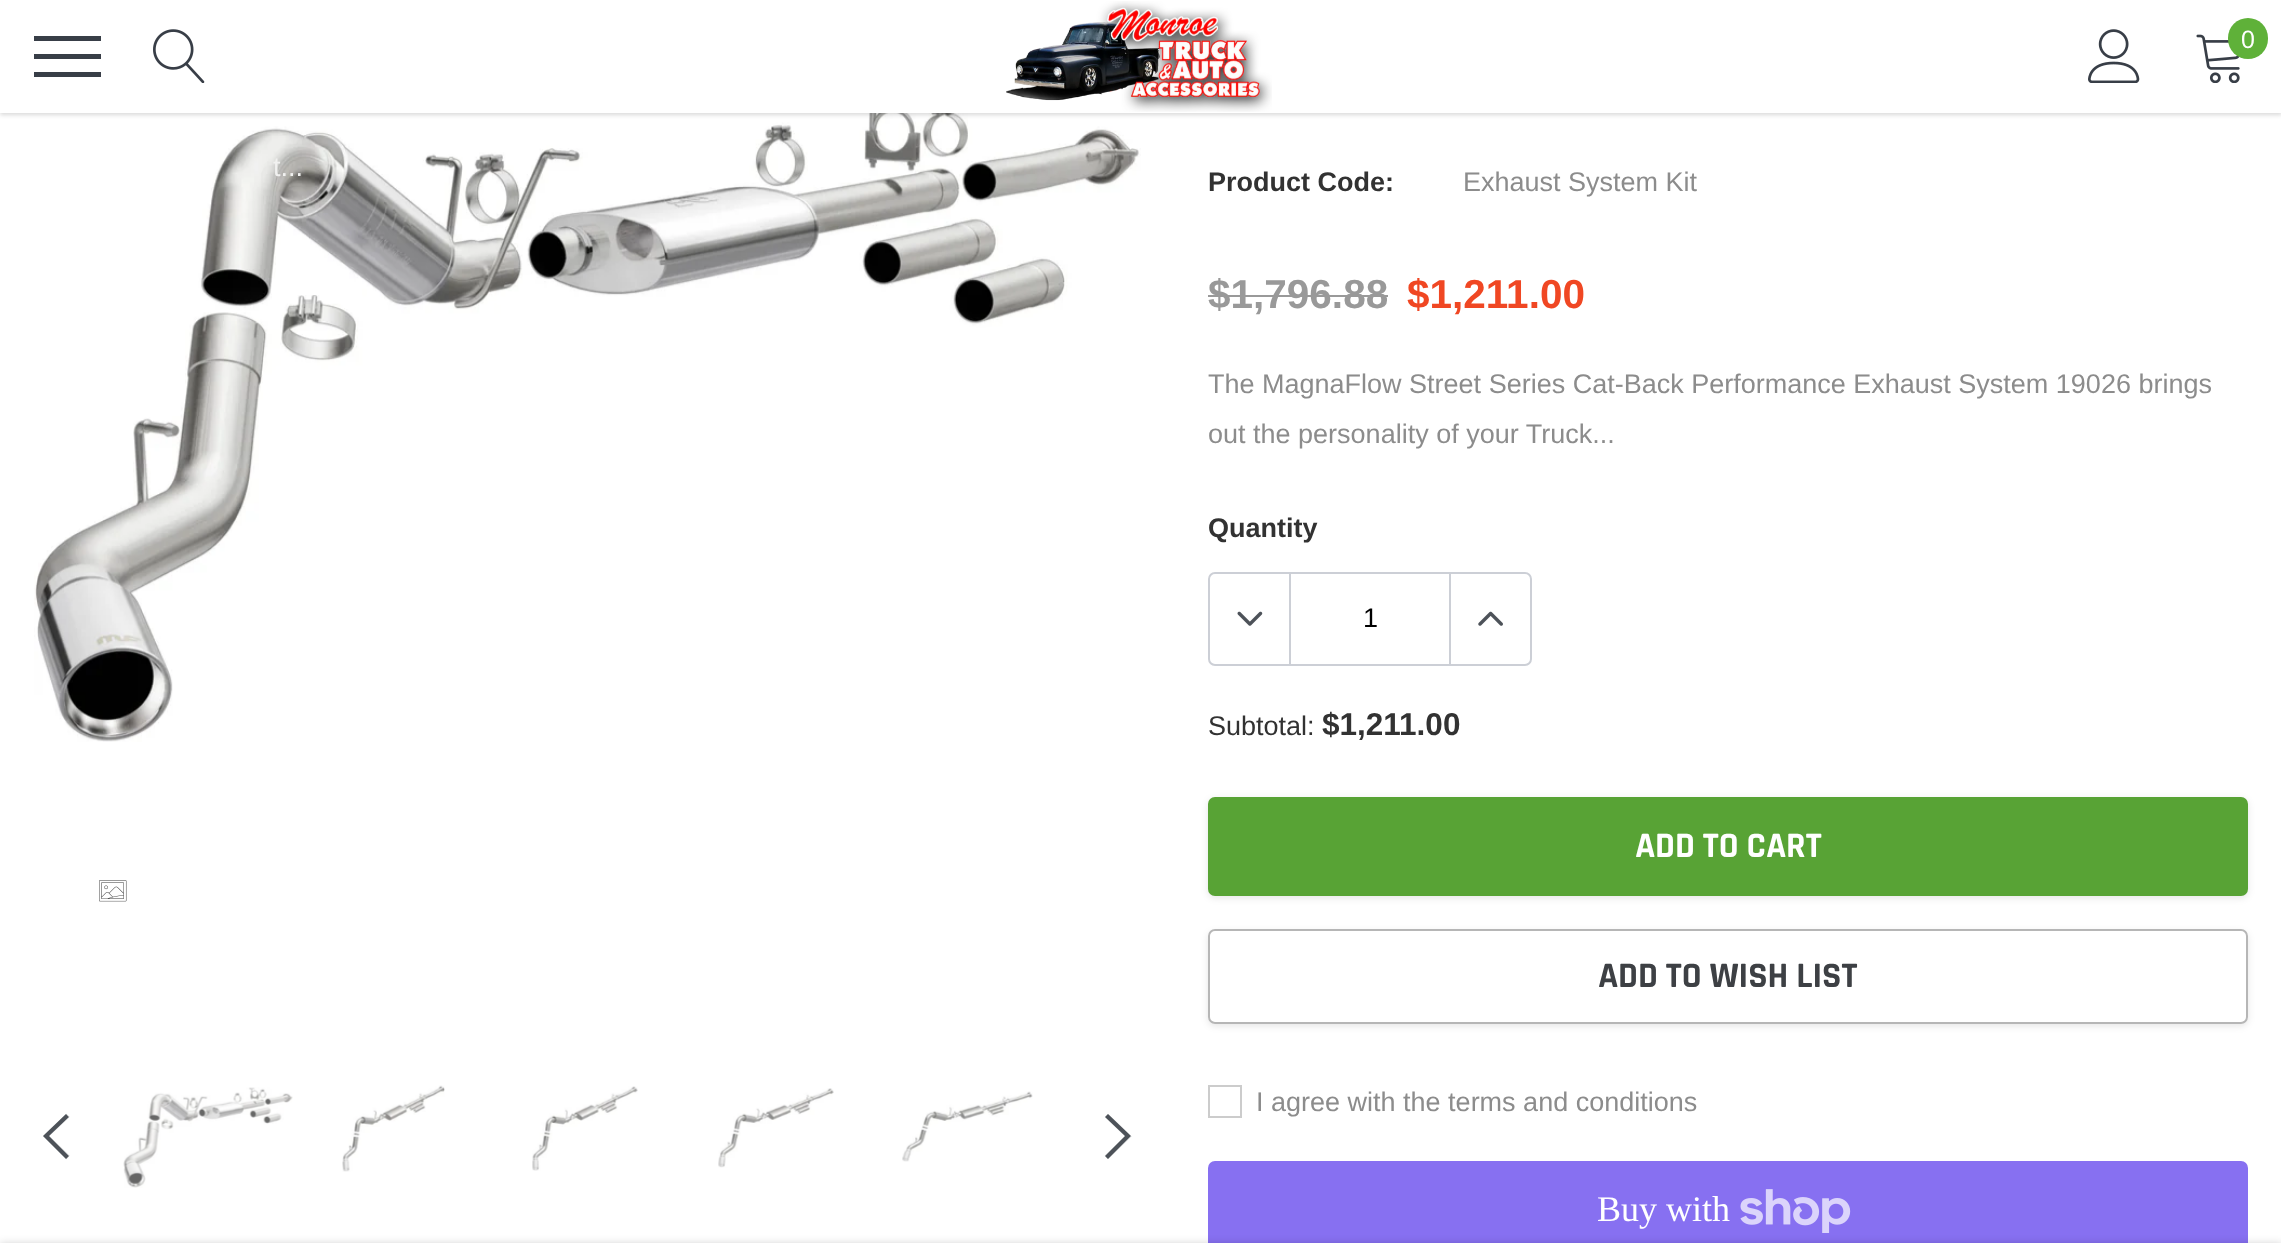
async function draw(canvas) {
	canvas.width = 2281;
	canvas.height = 1243;
	const c = canvas.getContext('2d');
	c.miterLimit = 4;
	c.fontKerning = 'normal';
	async function loadImage(src) {
		const img = new Image();
		img.src = src;
		await img.decode();
		return img;
	}

	c.fillStyle = '#fff';
	c.fillRect(0, 0, 2281, 1243);
	c.drawImage(await loadImage('img5.png'), 34, 113, 1107, 629);
	c.fillStyle = '#00000026';
	c.filter = 'blur(2px)';
	c.beginPath();
	c.rect(0, 2, 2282, 113);
	c.fill();
	c.filter = 'none';
	c.fillStyle = '#fff';
	c.fillRect(0, 0, 2281, 113);
	c.drawImage(await loadImage('img1.png'), 1006, 1, 266, 111);
	c.drawImage(await loadImage('img2.png'), 2088, 29, 52, 54);
	c.drawImage(await loadImage('img3.png'), 2196, 34, 44, 49);
	c.fillStyle = '#5fb139';
	c.beginPath();
	c.roundRect(2228, 18, 40, 41, 20);
	c.fill();
	c.font = '25px Arimo';
	c.fillStyle = '#fff';
	c.fillText('0', 2241, 48);
	for (const [x, y, w, h, color] of [
		[34, 54, 67, 5, '#383e47'],
		[34, 36, 67, 5, '#383e47'],
		[34, 72, 67, 5, '#383e47'],
	]) {
		c.fillStyle = color;
		c.fillRect(x, y, w, h);
	}
	c.drawImage(await loadImage('img4.png'), 153, 29, 52, 54);
	c.font = '27px Arimo';
	c.fillStyle = '#f1f1f0';
	c.fillText('t...', 273, 176);
	c.drawImage(await loadImage('img6.png'), 99, 880, 28, 22);
	c.fillStyle = '#4d5259';
	c.beginPath();
	c.moveTo(69, 1117);
	c.lineTo(66, 1114);
	c.lineTo(43, 1136);
	c.lineTo(66, 1159);
	c.lineTo(69, 1156);
	c.lineTo(49, 1136);
	c.closePath();
	c.fill();
	c.beginPath();
	c.moveTo(69.5, 1117);
	c.lineTo(66.5, 1114);
	c.lineTo(43, 1136);
	c.lineTo(66.5, 1159);
	c.lineTo(69.5, 1155.5);
	c.lineTo(49, 1136);
	c.closePath();
	c.strokeStyle = '#4d5259';
	c.lineWidth = 0.1;
	c.stroke();
	c.drawImage(await loadImage('img7.png'), 123, 1087, 170, 101);
	c.drawImage(await loadImage('img8.png'), 342, 1085, 103, 87);
	c.drawImage(await loadImage('img9.png'), 532, 1086, 106, 85);
	c.drawImage(await loadImage('img10.png'), 718, 1088, 116, 80);
	c.drawImage(await loadImage('img11.png'), 902, 1091, 131, 71);
	c.beginPath();
	c.moveTo(1108, 1114);
	c.lineTo(1105, 1117);
	c.lineTo(1125, 1136);
	c.lineTo(1105, 1156);
	c.lineTo(1108, 1159);
	c.lineTo(1131, 1136);
	c.closePath();
	c.fill();
	c.beginPath();
	c.moveTo(1108, 1114);
	c.lineTo(1105, 1117);
	c.lineTo(1125.5, 1136.5);
	c.lineTo(1105, 1155.5);
	c.lineTo(1108, 1159);
	c.lineTo(1131.5, 1136.5);
	c.closePath();
	c.stroke();
	c.font = 'bold 27px Arimo';
	c.fillStyle = '#323232';
	c.fillText('Product Code:', 1208, 191);
	c.font = '27px Arimo';
	c.fillStyle = '#8c8c8c';
	c.fillText('Exhaust System Kit', 1463, 191);
	c.font = 'bold 40.5px Arimo';
	c.fillStyle = '#999';
	c.fillText('$1,796.88', 1208, 308);
	c.fillRect(1208, 295, 180, 2);
	c.fillStyle = '#f04723';
	c.fillText('$1,211.00', 1407, 308);
	c.font = '27px Arimo';
	c.fillStyle = '#8c8c8c';
	c.fillText('The MagnaFlow Street Series Cat-Back Performance Exhaust System 19026 brings', 1208, 393);
	c.fillText('out the personality of your Truck...', 1208, 443);
	c.font = 'bold 27px Arimo';
	c.fillStyle = '#323232';
	c.fillText('Quantity', 1208, 537);
	c.beginPath();
	c.roundRect(1209, 573, 322, 92, 6);
	c.strokeStyle = '#cccfd6';
	c.lineWidth = 2;
	c.stroke();
	c.fillStyle = '#cccfd6';
	c.fillRect(1289, 574, 2, 90);
	c.drawImage(await loadImage('img12.png'), 1237, 611, 26, 15);
	c.font = '27px Arimo';
	c.fillStyle = '#000';
	c.fillText('1', 1363, 627);
	c.fillStyle = '#cccfd6';
	c.fillRect(1449, 574, 2, 90);
	c.drawImage(await loadImage('img13.png'), 1478, 611, 25, 15);
	c.fillStyle = '#323232';
	c.fillText('Subtotal:', 1208, 735);
	c.font = 'bold 31.5px Arimo';
	c.fillText('$1,211.00', 1322, 735);
	c.fillStyle = '#0000001a';
	c.filter = 'blur(3.5px)';
	c.beginPath();
	c.roundRect(1208, 799, 1040, 99, 7);
	c.fill();
	c.filter = 'none';
	c.fillStyle = '#58a335';
	c.beginPath();
	c.roundRect(1209, 798, 1038, 97, 6);
	c.fill();
	c.strokeStyle = '#58a335';
	c.stroke();
	c.font = 'bold 36px Rajdhani';
	c.fillStyle = '#fff';
	c.fillText('ADD TO CART', 1635, 857);
	c.save();
	c.beginPath();
	c.moveTo(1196, 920);
	c.lineTo(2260, 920);
	c.lineTo(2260, 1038);
	c.lineTo(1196, 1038);
	c.closePath();
	c.moveTo(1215, 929);
	c.lineTo(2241, 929);
	c.bezierCurveTo(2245, 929, 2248, 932, 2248, 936);
	c.lineTo(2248, 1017);
	c.bezierCurveTo(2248, 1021, 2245, 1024, 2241, 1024);
	c.lineTo(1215, 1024);
	c.bezierCurveTo(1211, 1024, 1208, 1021, 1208, 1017);
	c.lineTo(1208, 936);
	c.bezierCurveTo(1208, 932, 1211, 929, 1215, 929);
	c.closePath();
	c.clip('evenodd');
	c.fillStyle = '#0000001a';
	c.filter = 'blur(3.5px)';
	c.beginPath();
	c.roundRect(1208, 932, 1040, 94, 7);
	c.fill();
	c.filter = 'none';
	c.restore();
	c.beginPath();
	c.roundRect(1209, 930, 1038, 93, 6);
	c.strokeStyle = '#b6b6b6';
	c.stroke();
	c.fillStyle = '#3d4044';
	c.fillText('ADD TO WISH LIST', 1598, 987);
	c.strokeStyle = '#ccc';
	c.strokeRect(1209, 1086, 32, 31);
	c.font = '27px Arimo';
	c.fillStyle = '#8c8c8c';
	c.fillText('I agree with the terms and conditions', 1256, 1111);
	c.fillStyle = '#8770f1';
	c.beginPath();
	c.roundRect(1208, 1161, 1040, 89, 7);
	c.fill();
	c.font = '36px Liberation Serif';
	c.fillStyle = '#fff';
	c.fillText('Buy with', 1597, 1221);
	c.drawImage(await loadImage('img14.png'), 1740, 1189, 111, 44);
	c.fillStyle = '#00000033';
	c.filter = 'blur(4.5px)';
	c.beginPath();
	c.rect(0, 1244, 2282, 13);
	c.fill();
	c.filter = 'none';
}

draw(document.querySelector('canvas'));
